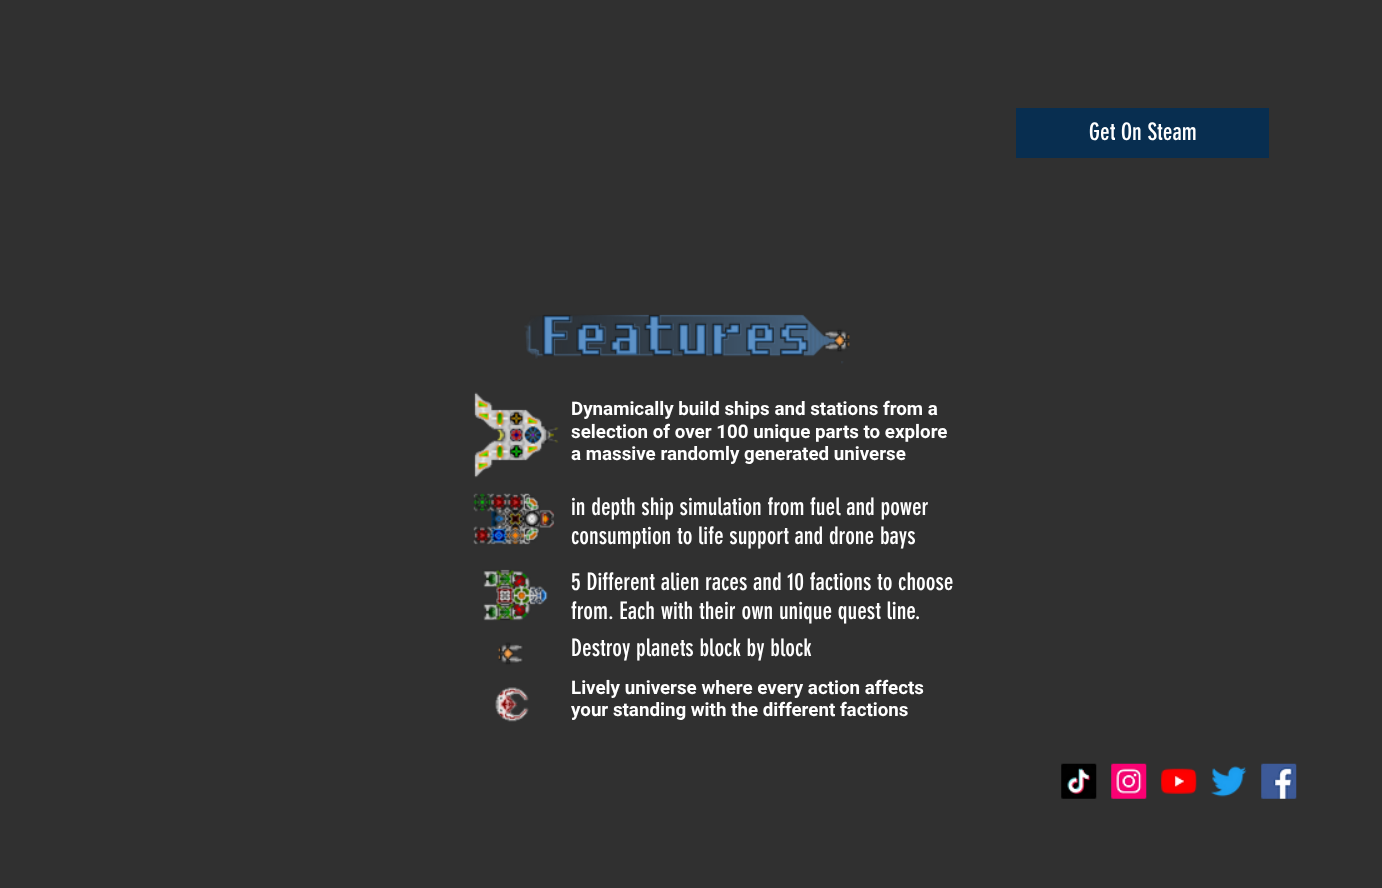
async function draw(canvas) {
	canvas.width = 1382;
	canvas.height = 888;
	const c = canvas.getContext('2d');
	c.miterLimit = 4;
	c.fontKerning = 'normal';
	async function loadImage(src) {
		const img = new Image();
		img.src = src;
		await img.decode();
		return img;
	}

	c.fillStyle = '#303030';
	c.fillRect(0, 0, 1382, 888);
	c.fillStyle = '#082e50';
	c.fillRect(1016, 108, 253, 50);
	c.font = '23.75px "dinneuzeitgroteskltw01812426"';
	c.fillStyle = '#fff';
	c.fillText('Get On Steam', 1089, 140);
	c.drawImage(await loadImage('img1.png'), 524, 314, 326, 50);
	c.drawImage(await loadImage('img2.png'), 473, 392, 86, 330);
	c.font = 'bold 18.75px Roboto';
	for (const [text, x, y] of [
		['Dynamically build ships and stations from a', 571, 415],
		['selection of over 100 unique parts to explore', 571, 438],
		['a massive randomly generated universe', 571, 460],
	]) {
		c.fillText(text, x, y);
	}
	c.font = '23.75px "dinneuzeitgroteskltw01812426"';
	for (const [text, x, y] of [
		['in depth ship simulation from fuel and power', 571, 515],
		['consumption to life support and drone bays', 571, 544],
		['5 Different alien races and 10 factions to choose', 571, 590],
		['from. Each with their own unique quest line.', 571, 619],
		['Destroy planets block by block', 571, 656],
	]) {
		c.fillText(text, x, y);
	}
	c.font = 'bold 18.75px Roboto';
	c.fillText('Lively universe where every action affects', 571, 694);
	c.fillText('your standing with the different factions', 571, 716);
	c.drawImage(await loadImage('img3.png'), 1061, 763, 36, 36);
	c.drawImage(await loadImage('img4.png'), 1111, 763, 36, 36);
	c.drawImage(await loadImage('img5.png'), 1161, 768, 36, 26);
	c.drawImage(await loadImage('img6.png'), 1211, 766, 36, 31);
	c.drawImage(await loadImage('img7.png'), 1261, 763, 36, 36);
}

draw(document.querySelector('canvas'));
